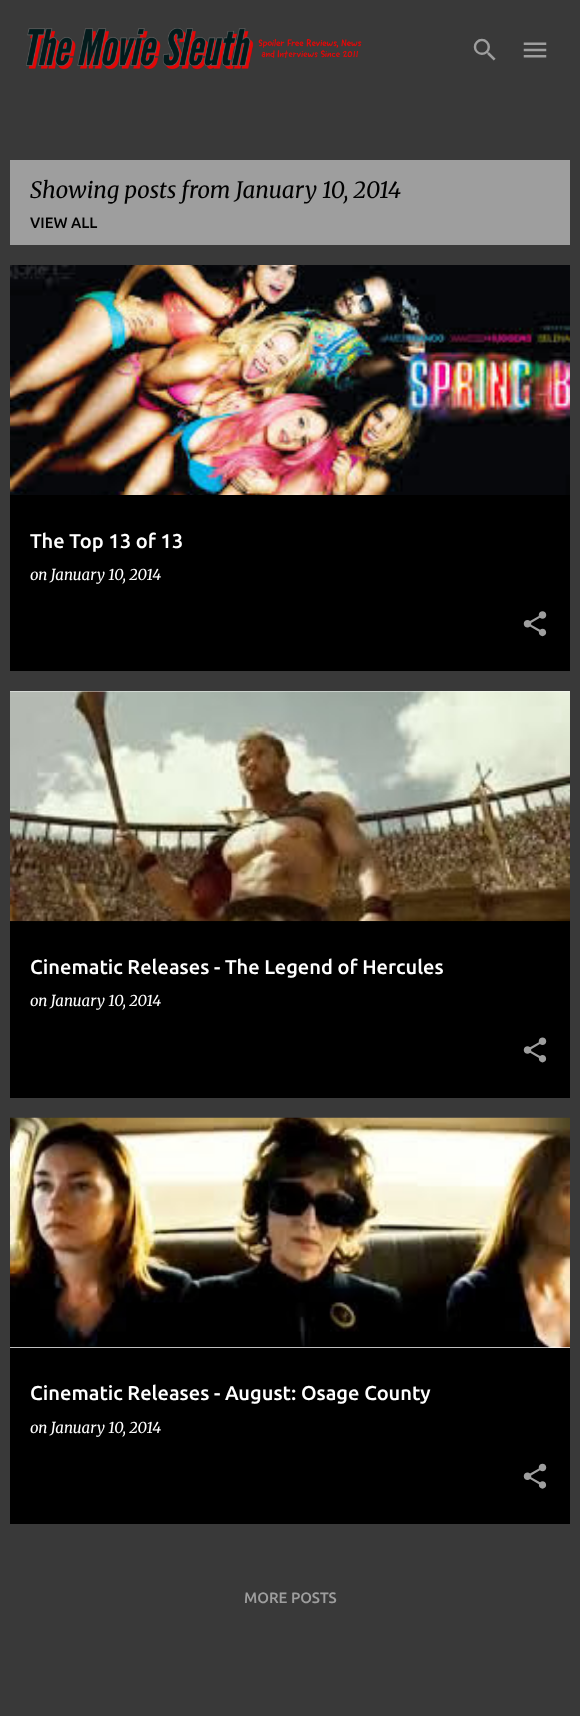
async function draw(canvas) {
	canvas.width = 580;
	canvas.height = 1716;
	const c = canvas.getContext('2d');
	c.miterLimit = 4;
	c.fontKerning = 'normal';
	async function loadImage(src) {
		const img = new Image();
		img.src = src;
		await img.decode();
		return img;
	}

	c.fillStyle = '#393939';
	c.fillRect(0, 0, 580, 1716);
	c.drawImage(await loadImage('img1.png'), 26, 28, 336, 42);
	c.drawImage(await loadImage('img2.png'), 473, 38, 23, 23);
	c.drawImage(await loadImage('img3.png'), 523, 42, 24, 16);
	c.fillStyle = '#9e9e9e';
	c.fillRect(10, 160, 560, 85);
	c.font = 'italic 22.5px Merriweather';
	c.fillStyle = '#000';
	c.fillText('Showing posts from January 10, 2014', 30, 198);
	c.font = '500 15px Ubuntu';
	c.fillText('VIEW ALL', 30, 228);
	c.fillRect(10, 495, 560, 176);
	c.drawImage(await loadImage('img4.png'), 10, 265, 560, 230);
	c.font = '500 20px Ubuntu';
	c.fillStyle = '#fff';
	c.fillText('The Top 13 of 13', 30, 548);
	c.font = 'italic 15px Merriweather';
	c.fillText('on January 10, 2014', 30, 580);
	c.drawImage(await loadImage('img5.png'), 523, 611, 24, 26);
	c.fillStyle = '#000';
	c.fillRect(10, 921, 560, 177);
	c.fillStyle = '#fff';
	c.fillRect(10, 691, 560, 1);
	c.drawImage(await loadImage('img6.png'), 10, 691, 560, 231);
	c.font = '500 20px Ubuntu';
	c.fillText('Cinematic Releases - The Legend of Hercules', 30, 974);
	c.font = 'italic 15px Merriweather';
	c.fillText('on January 10, 2014', 30, 1006);
	c.drawImage(await loadImage('img7.png'), 523, 1037, 24, 26);
	c.fillStyle = '#000';
	c.fillRect(10, 1348, 560, 176);
	c.fillStyle = '#fff';
	c.fillRect(10, 1347, 560, 1);
	c.drawImage(await loadImage('img8.png'), 10, 1117, 560, 231);
	c.font = '500 20px Ubuntu';
	c.fillText('Cinematic Releases - August: Osage County', 30, 1400);
	c.font = 'italic 15px Merriweather';
	c.fillText('on January 10, 2014', 30, 1433);
	c.drawImage(await loadImage('img9.png'), 523, 1463, 24, 26);
	c.font = '500 15px Ubuntu';
	c.fillStyle = '#9e9e9e';
	c.fillText('MORE POSTS', 244, 1603);
}

draw(document.querySelector('canvas'));
